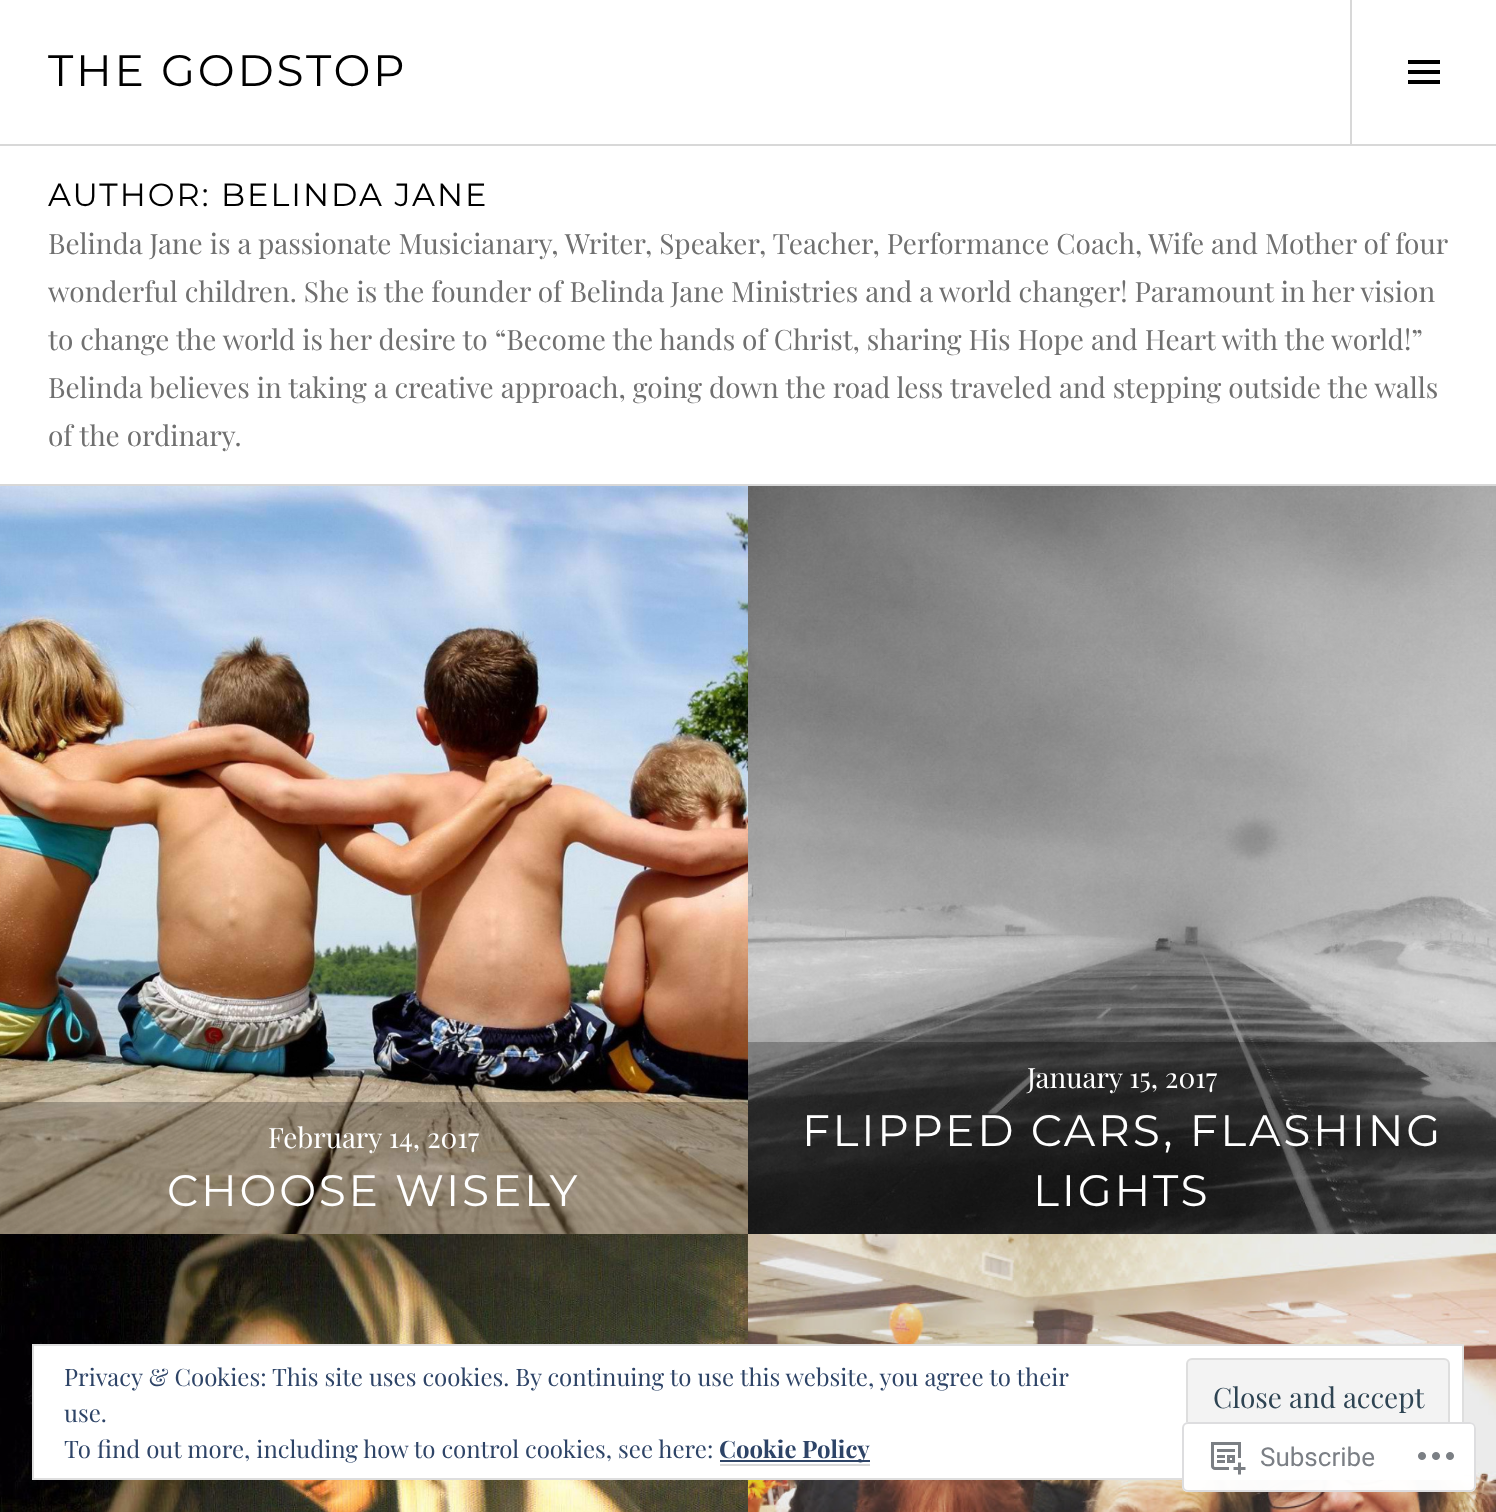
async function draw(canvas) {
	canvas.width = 1496;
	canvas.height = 1512;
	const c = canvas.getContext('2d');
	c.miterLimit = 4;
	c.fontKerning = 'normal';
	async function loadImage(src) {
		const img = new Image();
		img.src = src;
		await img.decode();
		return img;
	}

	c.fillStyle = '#fff';
	c.fillRect(0, 0, 1496, 1512);
	c.fillStyle = '#d8d8d8';
	c.fillRect(0, 144, 1496, 2);
	c.letterSpacing = '2.75px';
	c.font = '100 44px Montserrat';
	c.fillStyle = '#000';
	c.fillText('THE GODSTOP', 48, 86);
	c.fillStyle = '#d8d8d8';
	c.fillRect(1350, 0, 2, 144);
	c.drawImage(await loadImage('img1.png'), 1408, 60, 32, 24);
	c.fillRect(0, 484, 1496, 2);
	c.letterSpacing = '2px';
	c.font = '100 32px Montserrat';
	c.fillStyle = '#000';
	c.fillText('AUTHOR: BELINDA JANE', 48, 206);
	c.letterSpacing = '0px';
	c.font = '28px Playfair Display';
	c.fillStyle = '#707070';
	for (const [text, x, y] of [
		['Belinda Jane is a passionate Musicianary, Writer, Speaker, Teacher, Performance Coach, Wife and Mother of four', 48, 254],
		['wonderful children. She is the founder of Belinda Jane Ministries and a world changer! Paramount in her vision', 48, 302],
		['to change the world is her desire to “Become the hands of Christ, sharing His Hope and Heart with the world!”', 48, 350],
		['Belinda believes in taking a creative approach, going down the road less traveled and stepping outside the walls', 48, 398],
		['of the ordinary.', 48, 446],
	]) {
		c.fillText(text, x, y);
	}
	c.drawImage(await loadImage('img2.png'), 0, 486, 748, 748);
	c.fillStyle = '#00000040';
	c.fillRect(0, 1102, 748, 132);
	c.fillStyle = '#fff';
	c.fillText('February 14, 2017', 268, 1148);
	c.letterSpacing = '2.75px';
	c.font = '100 44px Montserrat';
	c.fillText('CHOOSE WISELY', 167, 1206);
	c.drawImage(await loadImage('img3.png'), 748, 486, 748, 748);
	c.fillStyle = '#00000040';
	c.fillRect(748, 1042, 748, 192);
	c.letterSpacing = '0px';
	c.font = '28px Playfair Display';
	c.fillStyle = '#fff';
	c.fillText('January 15, 2017', 1027, 1088);
	c.letterSpacing = '2.75px';
	c.font = '100 44px Montserrat';
	c.fillText('FLIPPED CARS, FLASHING', 802, 1146);
	c.fillText('LIGHTS', 1033, 1206);
	c.drawImage(await loadImage('img4.png'), 0, 1234, 748, 278);
	c.drawImage(await loadImage('img5.png'), 748, 1234, 748, 278);
	c.beginPath();
	c.rect(33, 1345, 1430, 134);
	c.fill();
	c.strokeStyle = '#dedede';
	c.lineWidth = 2;
	c.stroke();
	c.letterSpacing = '0px';
	c.font = '24px Playfair Display';
	c.fillStyle = '#2e4467';
	c.fillText('Privacy & Cookies: This site uses cookies. By continuing to use this website, you agree to their', 64, 1386);
	c.fillStyle = '#f3f3f3';
	c.beginPath();
	c.roundRect(1187, 1359, 262, 76, 5);
	c.fill();
	c.stroke();
	c.font = '28px Playfair Display';
	c.fillStyle = '#2e4453';
	c.fillText('Close and accept', 1213, 1408);
	c.font = '24px Playfair Display';
	c.fillStyle = '#2e4467';
	c.fillText('use.', 64, 1422);
	c.fillText('To find out more, including how to control cookies, see here:', 64, 1458);
	c.fillRect(720, 1460, 150, 2);
	c.font = 'bold 24px Playfair Display';
	c.fillText('Cookie Policy', 719, 1458);
	c.fillStyle = '#d8d8d8';
	c.fillRect(720, 1464, 150, 2);
	c.fillStyle = '#fffffffa';
	c.beginPath();
	c.roundRect(1182, 1422, 294, 70, 6);
	c.fill();
	c.beginPath();
	c.roundRect(1183, 1423, 292, 68, 5);
	c.strokeStyle = '#dcdcdefa';
	c.stroke();
	c.drawImage(await loadImage('img6.png'), 1211, 1442, 35, 33);
	c.font = '26px Roboto';
	c.fillStyle = '#7b7f85';
	c.fillText('Subscribe', 1260, 1466);
	c.drawImage(await loadImage('img7.png'), 1418, 1452, 36, 8);
}

draw(document.querySelector('canvas'));
